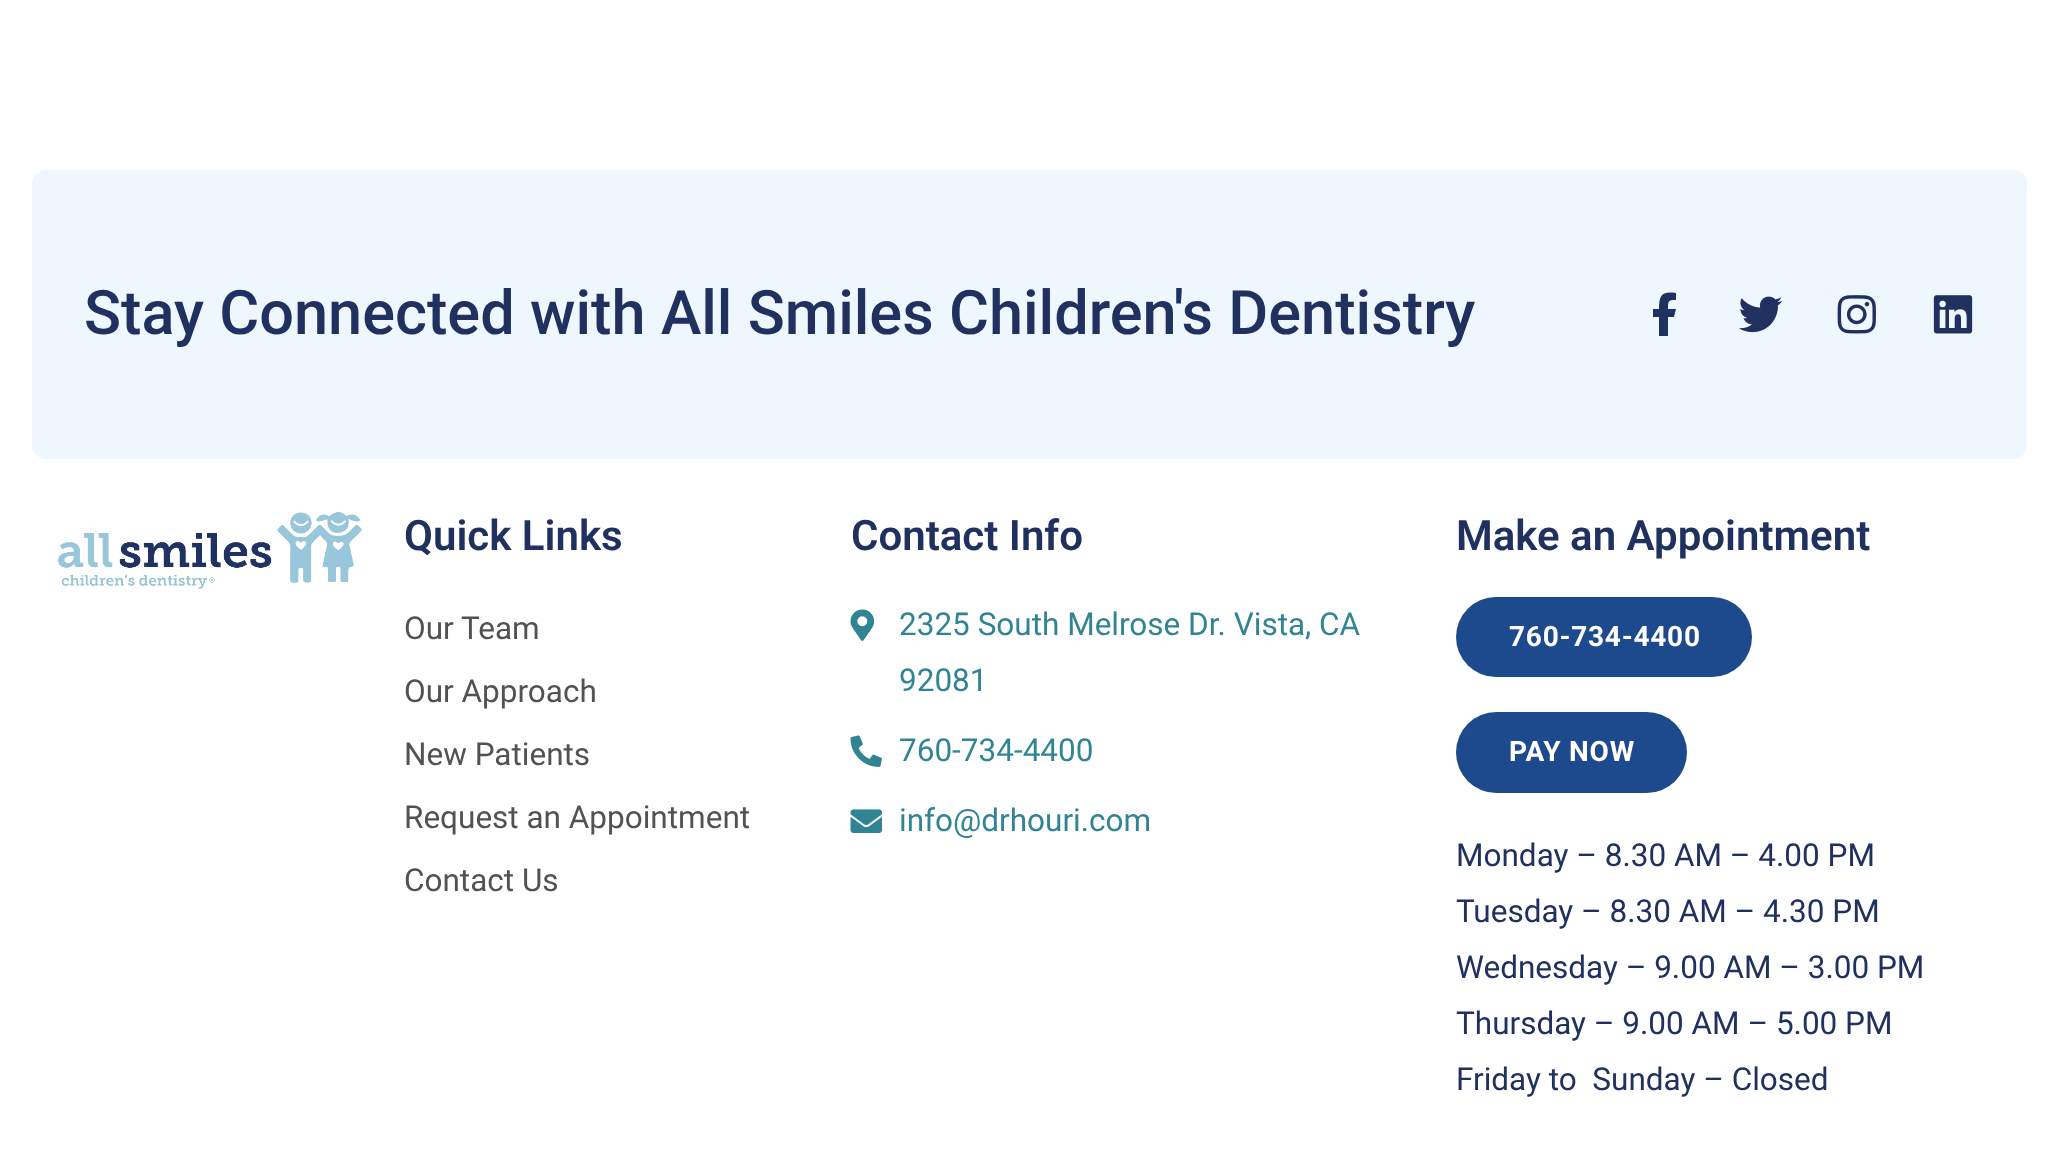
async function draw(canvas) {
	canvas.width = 2058;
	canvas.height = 1164;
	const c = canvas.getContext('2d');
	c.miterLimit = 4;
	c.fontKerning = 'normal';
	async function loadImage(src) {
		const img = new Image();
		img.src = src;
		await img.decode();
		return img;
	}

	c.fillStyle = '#fff';
	c.fillRect(0, 0, 2058, 1164);
	c.fillStyle = '#eff7fe';
	c.beginPath();
	c.roundRect(32, 170, 1995, 289, 14);
	c.fill();
	c.font = '500 61.25px Roboto';
	c.fillStyle = '#203160';
	c.fillText('Stay Connected with All Smiles Children\'s Dentistry', 84, 334);
	c.beginPath();
	c.moveTo(1674, 317);
	c.lineTo(1668, 317);
	c.lineTo(1668, 336);
	c.lineTo(1659, 336);
	c.lineTo(1659, 317);
	c.lineTo(1653, 317);
	c.lineTo(1653, 309);
	c.lineTo(1659, 309);
	c.bezierCurveTo(1659, 295, 1662, 291, 1676, 293);
	c.lineTo(1676, 300);
	c.bezierCurveTo(1668, 300, 1668, 301, 1668, 309);
	c.lineTo(1676, 309);
	c.closePath();
	c.fill();
	c.drawImage(await loadImage('img1.png'), 1738, 296, 45, 37);
	c.drawImage(await loadImage('img2.png'), 1837, 295, 39, 39);
	c.drawImage(await loadImage('img3.png'), 1933, 295, 40, 39);
	c.drawImage(await loadImage('img4.png'), 58, 512, 304, 77);
	c.font = '600 42px Roboto';
	c.fillText('Quick Links', 404, 550);
	c.font = '31.5px Roboto';
	c.fillStyle = '#525252';
	for (const [text, x, y] of [
		['Our Team', 404, 639],
		['Our Approach', 404, 702],
		['New Patients', 404, 765],
		['Request an Appointment', 404, 828],
		['Contact Us', 404, 891],
	]) {
		c.fillText(text, x, y);
	}
	c.font = '600 42px Roboto';
	c.fillStyle = '#203160';
	c.fillText('Contact Info', 851, 550);
	c.drawImage(await loadImage('img5.png'), 850, 609, 25, 32);
	c.font = '31.5px Roboto';
	c.fillStyle = '#318493';
	c.fillText('2325 South Melrose Dr. Vista, CA', 899, 635);
	c.fillText('92081', 899, 691);
	c.drawImage(await loadImage('img6.png'), 850, 735, 32, 32);
	c.fillText('760-734-4400', 899, 761);
	c.drawImage(await loadImage('img7.png'), 850, 809, 32, 24);
	c.fillText('info@drhouri.com', 899, 831);
	c.font = '600 42px Roboto';
	c.fillStyle = '#203160';
	c.fillText('Make an Appointment', 1456, 550);
	c.fillStyle = '#1c4a8c';
	c.beginPath();
	c.roundRect(1456, 597, 296, 80, 40);
	c.fill();
	c.letterSpacing = '0.75px';
	c.font = 'bold 28px Roboto';
	c.fillStyle = '#fff';
	c.fillText('760-734-4400', 1509, 646);
	c.fillStyle = '#1c4a8c';
	c.beginPath();
	c.roundRect(1456, 712, 231, 81, 40.5);
	c.fill();
	c.fillStyle = '#fff';
	c.fillText('PAY NOW', 1509, 761);
	c.letterSpacing = '0px';
	c.font = '31.5px Roboto';
	c.fillStyle = '#203160';
	for (const [text, x, y] of [
		['Monday – 8.30 AM – 4.00 PM', 1456, 866],
		['Tuesday – 8.30 AM – 4.30 PM', 1456, 922],
		['Wednesday – 9.00 AM – 3.00 PM', 1456, 978],
		['Thursday – 9.00 AM – 5.00 PM', 1456, 1034],
		['Friday to  Sunday – Closed', 1456, 1090],
	]) {
		c.fillText(text, x, y);
	}
}

draw(document.querySelector('canvas'));
